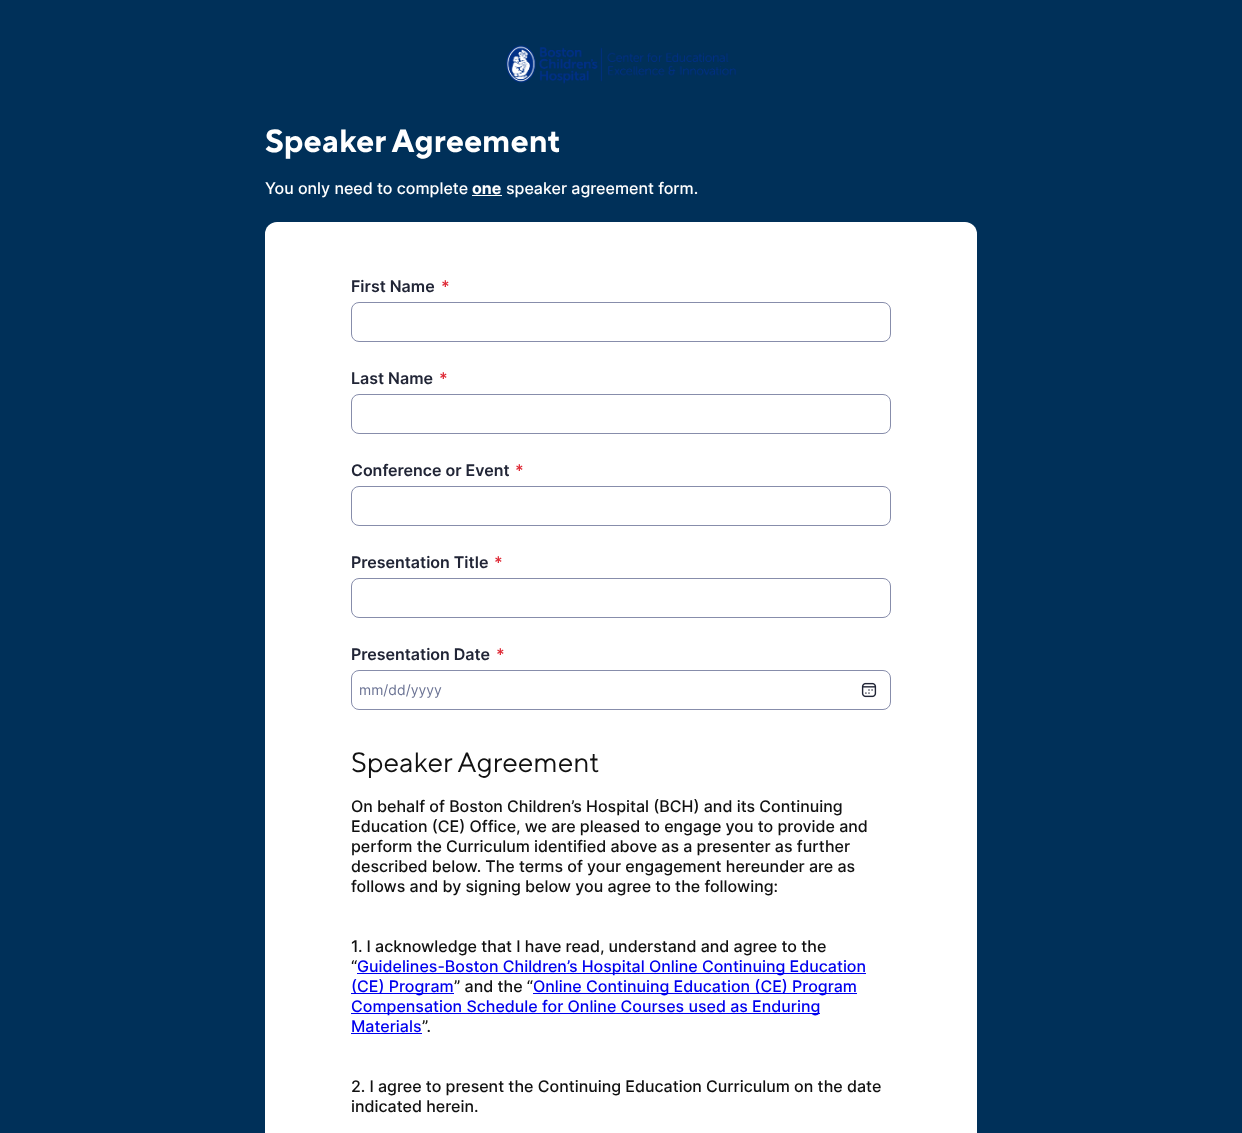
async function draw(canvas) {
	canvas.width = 1242;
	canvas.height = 1133;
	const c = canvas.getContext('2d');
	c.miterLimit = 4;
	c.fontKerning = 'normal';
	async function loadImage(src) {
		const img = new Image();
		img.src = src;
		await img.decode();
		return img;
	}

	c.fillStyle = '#003059';
	c.fillRect(0, 0, 1242, 1133);
	c.drawImage(await loadImage('img1.png'), 506, 45, 230, 39);
	c.font = 'bold 32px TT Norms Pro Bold';
	c.fillStyle = '#fff';
	c.fillText('Speaker Agreement', 265, 152);
	c.font = '500 16px Inter';
	c.fillText('You only need to complete', 265, 194);
	c.font = 'bold 16px Inter';
	c.fillText('one', 472, 194);
	c.fillRect(472, 195, 30, 1);
	c.font = '500 16px Inter';
	c.fillText('speaker agreement form.', 506, 194);
	c.beginPath();
	c.roundRect(265, 222, 712, 911, [12, 12, 0, 0]);
	c.fill();
	c.font = '600 16px Inter';
	c.fillStyle = '#212536';
	c.fillText('First Name', 351, 292);
	c.fillStyle = '#df2a36';
	c.fillText('*', 441, 292);
	c.beginPath();
	c.roundRect(351.5, 302.5, 539, 39, 7.5);
	c.strokeStyle = '#878dab';
	c.stroke();
	c.fillStyle = '#212536';
	c.fillText('Last Name', 351, 384);
	c.fillStyle = '#df2a36';
	c.fillText('*', 439, 384);
	c.beginPath();
	c.roundRect(351.5, 394.5, 539, 39, 7.5);
	c.stroke();
	c.fillStyle = '#212536';
	c.fillText('Conference or Event', 351, 476);
	c.fillStyle = '#df2a36';
	c.fillText('*', 515, 476);
	c.beginPath();
	c.roundRect(351.5, 486.5, 539, 39, 7.5);
	c.stroke();
	c.fillStyle = '#212536';
	c.fillText('Presentation Title', 351, 568);
	c.fillStyle = '#df2a36';
	c.fillText('*', 494, 568);
	c.beginPath();
	c.roundRect(351.5, 578.5, 539, 39, 7.5);
	c.stroke();
	c.fillStyle = '#212536';
	c.fillText('Presentation Date', 351, 660);
	c.fillStyle = '#df2a36';
	c.fillText('*', 496, 660);
	c.beginPath();
	c.roundRect(351.5, 670.5, 539, 39, 7.5);
	c.stroke();
	c.font = '14px Inter';
	c.fillStyle = '#6b7394';
	c.fillText('mm/dd/yyyy', 359, 695);
	c.drawImage(await loadImage('img2.png'), 861, 682, 16, 16);
	c.font = '28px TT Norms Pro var';
	c.fillStyle = '#111';
	c.fillText('Speaker Agreement', 351, 772);
	c.font = '500 16px Inter';
	for (const [text, x, y] of [
		['On behalf of Boston Children’s Hospital (BCH) and its Continuing', 351, 812],
		['Education (CE) Office, we are pleased to engage you to provide and', 351, 832],
		['perform the Curriculum identified above as a presenter as further', 351, 852],
		['described below. The terms of your engagement hereunder are as', 351, 872],
		['follows and by signing below you agree to the following:', 351, 892],
		['1. I acknowledge that I have read, understand and agree to the', 351, 952],
		['“', 351, 972],
	]) {
		c.fillText(text, x, y);
	}
	c.fillStyle = '#00e';
	c.fillRect(357, 973, 509, 1);
	c.fillText('Guidelines-Boston Children’s Hospital Online Continuing Education', 357, 972);
	c.fillRect(351, 993, 103, 1);
	c.fillText('(CE) Program', 351, 992);
	c.fillStyle = '#111';
	c.fillText('” and the “', 454, 992);
	c.fillStyle = '#00e';
	c.fillRect(533, 993, 324, 1);
	c.fillText('Online Continuing Education (CE) Program', 533, 992);
	c.fillRect(351, 1013, 469, 1);
	c.fillText('Compensation Schedule for Online Courses used as Enduring', 351, 1012);
	c.fillText('Materials', 351, 1032);
	c.fillRect(351, 1033, 71, 1);
	c.fillStyle = '#111';
	for (const [text, x, y] of [
		['”.', 422, 1032],
		['2. I agree to present the Continuing Education Curriculum on the date', 351, 1092],
		['indicated herein.', 351, 1112],
	]) {
		c.fillText(text, x, y);
	}
}

draw(document.querySelector('canvas'));
